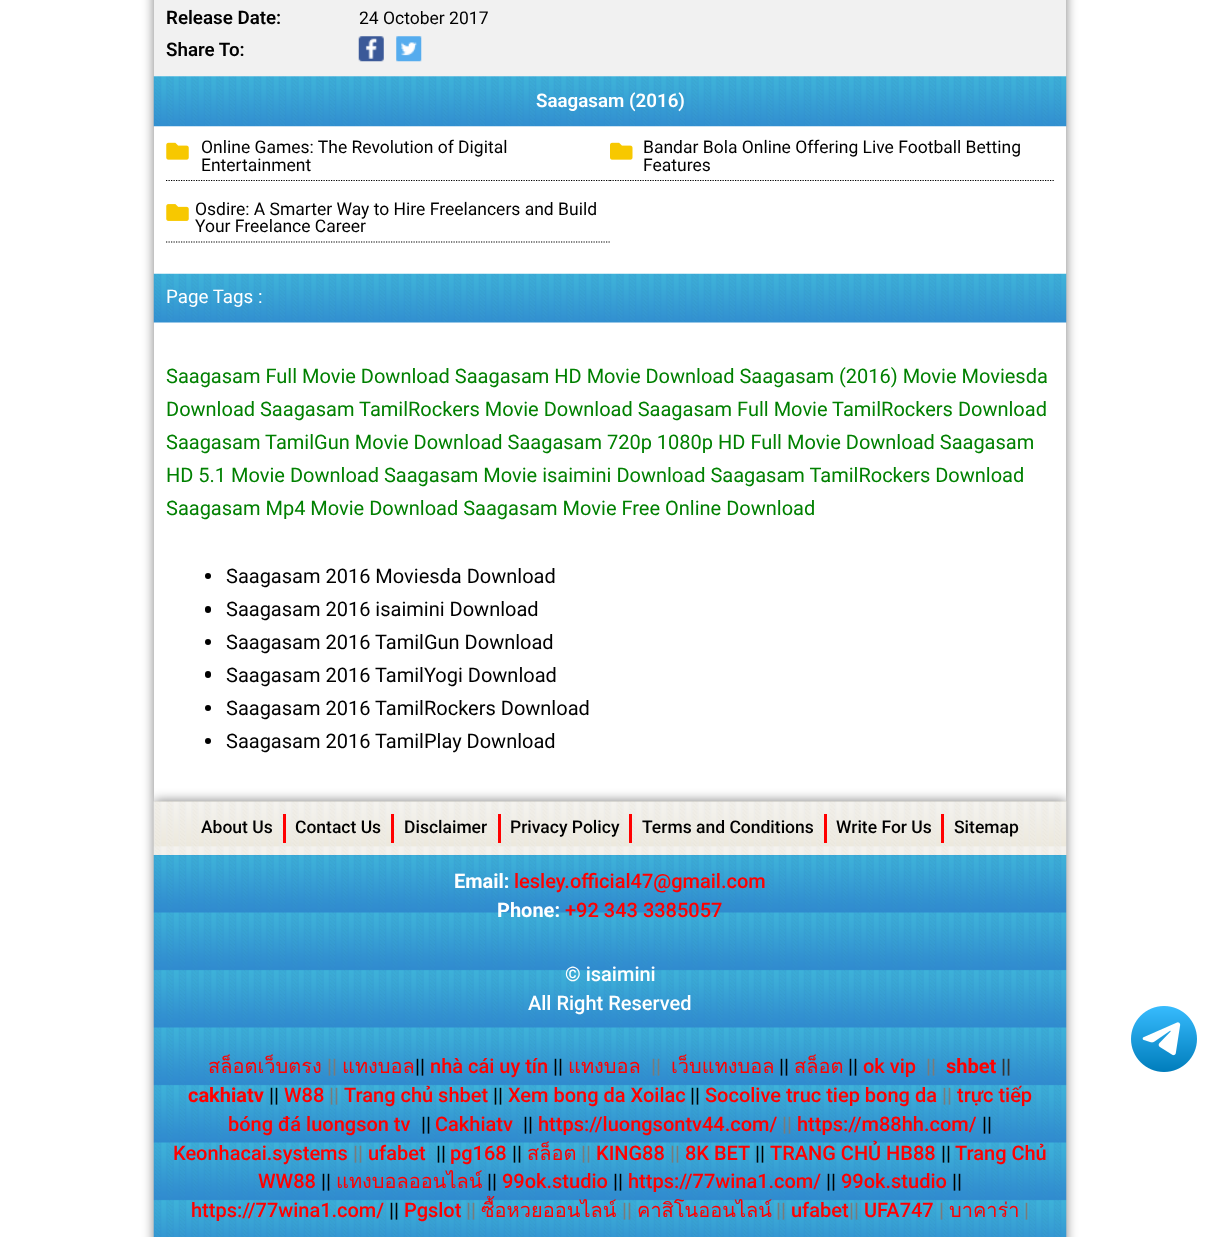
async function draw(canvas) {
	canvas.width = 1220;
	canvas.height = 1237;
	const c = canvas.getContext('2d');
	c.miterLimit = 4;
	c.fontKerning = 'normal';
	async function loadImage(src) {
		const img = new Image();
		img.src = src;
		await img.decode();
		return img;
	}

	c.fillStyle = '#fff';
	c.fillRect(0, 0, 1220, 1237);
	c.save();
	c.beginPath();
	c.moveTo(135, 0);
	c.lineTo(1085, 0);
	c.lineTo(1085, 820);
	c.lineTo(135, 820);
	c.closePath();
	c.moveTo(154, -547);
	c.lineTo(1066, -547);
	c.lineTo(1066, 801);
	c.lineTo(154, 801);
	c.closePath();
	c.clip('evenodd');
	c.fillStyle = '#00000080';
	c.filter = 'blur(6px)';
	c.beginPath();
	c.rect(154, -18, 912, 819);
	c.fill();
	c.filter = 'none';
	c.restore();
	c.fillStyle = '#f1f1f1';
	c.fillRect(154, 0, 912, 76);
	c.font = '600 18.75px Roboto';
	c.fillStyle = '#000';
	c.fillText('Release Date:', 166, 24);
	c.font = '17.5px Roboto';
	c.fillText('24 October 2017', 359, 24);
	c.font = '600 18.75px Roboto';
	c.fillText('Share To:', 166, 56);
	c.drawImage(await loadImage('img1.png'), 358, 36, 26, 26);
	c.drawImage(await loadImage('img2.png'), 396, 36, 26, 26);
	c.drawImage(await loadImage('img3.png'), 153, 76, 914, 51);
	c.fillStyle = '#fff';
	c.fillText('Saagasam (2016)', 536, 107);
	c.drawImage(await loadImage('img4.png'), 166, 142, 23, 18);
	c.font = '17.5px Roboto';
	c.fillStyle = '#000';
	c.fillText('Online Games: The Revolution of Digital', 201, 153);
	c.fillText('Entertainment', 201, 171);
	c.beginPath();
	c.moveTo(166, 180.5);
	c.lineTo(610, 180.5);
	c.strokeStyle = '#000';
	c.lineWidth = 1.2;
	c.setLineDash([1.25, 1.25]);
	c.stroke();
	c.drawImage(await loadImage('img5.png'), 610, 142, 23, 18);
	c.fillText('Bandar Bola Online Offering Live Football Betting', 643, 153);
	c.fillText('Features', 643, 171);
	c.beginPath();
	c.moveTo(610, 180.5);
	c.lineTo(1054, 180.5);
	c.stroke();
	c.drawImage(await loadImage('img6.png'), 166, 204, 23, 17);
	c.fillText('Osdire: A Smarter Way to Hire Freelancers and Build', 195, 215);
	c.fillText('Your Freelance Career', 195, 232);
	c.beginPath();
	c.moveTo(166, 242);
	c.lineTo(610, 242);
	c.stroke();
	c.drawImage(await loadImage('img7.png'), 153, 273, 914, 50);
	c.font = '18.75px Roboto';
	c.fillStyle = '#fff';
	c.fillText('Page Tags :', 166, 303);
	c.font = '20px Roboto';
	c.fillStyle = '#008000';
	for (const [text, x, y] of [
		['Saagasam Full Movie Download Saagasam HD Movie Download Saagasam (2016) Movie Moviesda', 166, 383],
		['Download Saagasam TamilRockers Movie Download Saagasam Full Movie TamilRockers Download', 166, 416],
		['Saagasam TamilGun Movie Download Saagasam 720p 1080p HD Full Movie Download Saagasam', 166, 449],
		['HD 5.1 Movie Download Saagasam Movie isaimini Download Saagasam TamilRockers Download', 166, 482],
		['Saagasam Mp4 Movie Download Saagasam Movie Free Online Download', 166, 515],
	]) {
		c.fillText(text, x, y);
	}
	c.fillStyle = '#000';
	c.beginPath();
	c.arc(208, 576, 3, 0, 2 * Math.PI);
	c.fill();
	c.fillText('Saagasam 2016 Moviesda Download', 226, 583);
	c.beginPath();
	c.roundRect(205, 606, 6, 7, 3);
	c.fill();
	c.fillText('Saagasam 2016 isaimini Download', 226, 616);
	c.beginPath();
	c.arc(208, 642, 3, 0, 2 * Math.PI);
	c.fill();
	c.fillText('Saagasam 2016 TamilGun Download', 226, 649);
	c.beginPath();
	c.roundRect(205, 671, 6, 7, 3);
	c.fill();
	c.fillText('Saagasam 2016 TamilYogi Download', 226, 682);
	c.beginPath();
	c.arc(208, 708, 3, 0, 2 * Math.PI);
	c.fill();
	c.fillText('Saagasam 2016 TamilRockers Download', 226, 715);
	c.beginPath();
	c.arc(208, 741, 3, 0, 2 * Math.PI);
	c.fill();
	c.fillText('Saagasam 2016 TamilPlay Download', 226, 748);
	c.fillStyle = '#00000080';
	c.filter = 'blur(6px)';
	c.beginPath();
	c.rect(154, 801, 912, 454);
	c.fill();
	c.filter = 'none';
	c.drawImage(await loadImage('img8.png'), 153, 801, 914, 54);
	c.font = '500 17.5px Roboto';
	c.fillStyle = '#000';
	c.fillText('About Us', 201, 833);
	c.fillStyle = '#f00';
	c.fillRect(283, 814, 3, 29);
	c.fillStyle = '#000';
	c.fillText('Contact Us', 295, 833);
	c.fillStyle = '#f00';
	c.fillRect(391, 814, 3, 29);
	c.fillStyle = '#000';
	c.fillText('Disclaimer', 404, 833);
	c.fillStyle = '#f00';
	c.fillRect(498, 814, 3, 29);
	c.fillStyle = '#000';
	c.fillText('Privacy Policy', 510, 833);
	c.fillStyle = '#f00';
	c.fillRect(629, 814, 3, 29);
	c.fillStyle = '#000';
	c.fillText('Terms and Conditions', 642, 833);
	c.fillStyle = '#f00';
	c.fillRect(824, 814, 3, 29);
	c.fillStyle = '#000';
	c.fillText('Write For Us', 836, 833);
	c.fillStyle = '#f00';
	c.fillRect(941, 814, 3, 29);
	c.fillStyle = '#000';
	c.fillText('Sitemap', 954, 833);
	c.drawImage(await loadImage('img9.png'), 153, 855, 914, 382);
	c.font = 'bold 20px Roboto';
	c.fillStyle = '#fff';
	c.fillText('Email:', 454, 888);
	c.font = '500 20px Roboto';
	c.fillStyle = '#f00';
	c.fillText('lesley.official47@gmail.com', 514, 888);
	c.font = 'bold 20px Roboto';
	c.fillStyle = '#fff';
	c.fillText('Phone:', 497, 917);
	c.font = '500 20px Roboto';
	c.fillStyle = '#f00';
	c.fillText('+92 343 3385057', 565, 917);
	c.fillStyle = '#fff';
	c.fillText('© isaimini', 565, 981);
	c.fillText('All Right Reserved', 528, 1010);
	c.font = '20px Loma';
	c.fillStyle = '#f00';
	c.fillText('สล็อตเว็บตรง', 208, 1073);
	c.font = '500 20px Roboto';
	c.fillStyle = '#7a7a7a';
	c.fillText('||', 327, 1073);
	c.font = '20px Loma';
	c.fillStyle = '#f00';
	c.fillText('แทงบอล', 342, 1073);
	c.font = '500 20px Roboto';
	c.fillStyle = '#000';
	c.fillText('||', 415, 1073);
	c.fillStyle = '#f00';
	c.fillText('nhà cái uy tín', 430, 1073);
	c.fillStyle = '#000';
	c.fillText('||', 553, 1073);
	c.font = '20px Loma';
	c.fillStyle = '#f00';
	c.fillText('แทงบอล', 568, 1073);
	c.font = '500 20px Roboto';
	c.fillStyle = '#7a7a7a';
	c.fillText('||', 651, 1073);
	c.font = '20px Loma';
	c.fillStyle = '#f00';
	c.fillText('เว็บแทงบอล', 671, 1073);
	c.font = '500 20px Roboto';
	c.fillStyle = '#000';
	c.fillText('||', 779, 1073);
	c.font = '20px Loma';
	c.fillStyle = '#f00';
	c.fillText('สล็อต', 794, 1073);
	c.font = '500 20px Roboto';
	c.fillStyle = '#000';
	c.fillText('||', 848, 1073);
	c.fillStyle = '#f00';
	c.fillText('ok vip', 863, 1073);
	c.fillStyle = '#7a7a7a';
	c.fillText('||', 926, 1073);
	c.font = 'bold 20px Roboto';
	c.fillStyle = '#f00';
	c.fillText('shbet', 946, 1073);
	c.fillStyle = '#333';
	c.fillText('||', 1001, 1073);
	c.fillStyle = '#f00';
	c.fillText('cakhiatv', 188, 1102);
	c.font = '500 20px Roboto';
	c.fillStyle = '#000';
	c.fillText('||', 269, 1102);
	c.fillStyle = '#f00';
	c.fillText('W88', 284, 1102);
	c.fillStyle = '#7a7a7a';
	c.fillText('||', 329, 1102);
	c.fillStyle = '#f00';
	c.fillText('Trang chủ shbet', 344, 1102);
	c.fillStyle = '#000';
	c.fillText('||', 493, 1102);
	c.fillStyle = '#f00';
	c.fillText('Xem bong da Xoilac', 508, 1102);
	c.fillStyle = '#000';
	c.fillText('||', 690, 1102);
	c.fillStyle = '#f00';
	c.fillText('Socolive truc tiep bong da', 705, 1102);
	c.fillStyle = '#7a7a7a';
	c.fillText('||', 942, 1102);
	c.fillStyle = '#f00';
	c.fillText('trực tiếp', 957, 1102);
	c.fillText('bóng đá luongson tv', 228, 1131);
	c.fillStyle = '#000';
	c.fillText('||', 421, 1131);
	c.fillStyle = '#f00';
	c.fillText('Cakhiatv', 435, 1131);
	c.fillStyle = '#000';
	c.fillText('||', 523, 1131);
	c.fillStyle = '#f00';
	c.fillText('https://luongsontv44.com/', 538, 1131);
	c.fillStyle = '#7a7a7a';
	c.fillText('||', 782, 1131);
	c.fillStyle = '#f00';
	c.fillText('https://m88hh.com/', 797, 1131);
	c.fillStyle = '#000';
	c.fillText('||', 982, 1131);
	c.fillStyle = '#f00';
	c.fillText('Keonhacai.systems', 173, 1160);
	c.fillStyle = '#7a7a7a';
	c.fillText('||', 353, 1160);
	c.fillStyle = '#f00';
	c.fillText('ufabet', 368, 1160);
	c.fillStyle = '#000';
	c.fillText('||', 436, 1160);
	c.fillStyle = '#f00';
	c.fillText('pg168', 450, 1160);
	c.fillStyle = '#000';
	c.fillText('||', 512, 1160);
	c.font = '20px Loma';
	c.fillStyle = '#f00';
	c.fillText('สล็อต', 527, 1160);
	c.font = '500 20px Roboto';
	c.fillStyle = '#7a7a7a';
	c.fillText('||', 581, 1160);
	c.fillStyle = '#f00';
	c.fillText('KING88', 596, 1160);
	c.fillStyle = '#7a7a7a';
	c.fillText('||', 670, 1160);
	c.fillStyle = '#f00';
	c.fillText('8K BET', 685, 1160);
	c.fillStyle = '#000';
	c.fillText('||', 755, 1160);
	c.fillStyle = '#f00';
	c.fillText('TRANG CHỦ HB88', 770, 1160);
	c.fillStyle = '#000';
	c.fillText('||', 941, 1160);
	c.fillStyle = '#f00';
	c.fillText('Trang Chủ', 955, 1160);
	c.fillText('WW88', 258, 1188);
	c.fillStyle = '#000';
	c.fillText('||', 321, 1188);
	c.font = '20px Loma';
	c.fillStyle = '#f00';
	c.fillText('แทงบอลออนไลน์', 336, 1188);
	c.font = '500 20px Roboto';
	c.fillStyle = '#000';
	c.fillText('||', 487, 1188);
	c.fillStyle = '#f00';
	c.fillText('99ok.studio', 502, 1188);
	c.fillStyle = '#000';
	c.fillText('||', 613, 1188);
	c.fillStyle = '#f00';
	c.fillText('https://77wina1.com/', 628, 1188);
	c.fillStyle = '#000';
	c.fillText('||', 826, 1188);
	c.fillStyle = '#f00';
	c.fillText('99ok.studio', 841, 1188);
	c.fillStyle = '#000';
	c.fillText('||', 952, 1188);
	c.fillStyle = '#f00';
	c.fillText('https://77wina1.com/', 191, 1217);
	c.fillStyle = '#000';
	c.fillText('||', 389, 1217);
	c.fillStyle = '#f00';
	c.fillText('Pgslot', 404, 1217);
	c.fillStyle = '#7a7a7a';
	c.fillText('||', 466, 1217);
	c.font = '20px Loma';
	c.fillStyle = '#f00';
	c.fillText('ซื้อหวยออนไลน์', 481, 1217);
	c.font = '500 20px Roboto';
	c.fillStyle = '#7a7a7a';
	c.fillText('||', 622, 1217);
	c.font = '20px Loma';
	c.fillStyle = '#f00';
	c.fillText('คาสิโนออนไลน์', 637, 1217);
	c.font = '500 20px Roboto';
	c.fillStyle = '#7a7a7a';
	c.fillText('||', 776, 1217);
	c.fillStyle = '#f00';
	c.fillText('ufabet', 791, 1217);
	c.fillStyle = '#7a7a7a';
	c.fillText('||', 849, 1217);
	c.fillStyle = '#f00';
	c.fillText('UFA747', 864, 1217);
	c.fillStyle = '#7a7a7a';
	c.fillText('|', 939, 1217);
	c.font = '20px Loma';
	c.fillStyle = '#f00';
	c.fillText('บาคาร่า', 949, 1217);
	c.font = '500 20px Roboto';
	c.fillStyle = '#7a7a7a';
	c.fillText('|', 1024, 1217);
	c.drawImage(await loadImage('img10.png'), 1131, 1006, 66, 66);
}

draw(document.querySelector('canvas'));
